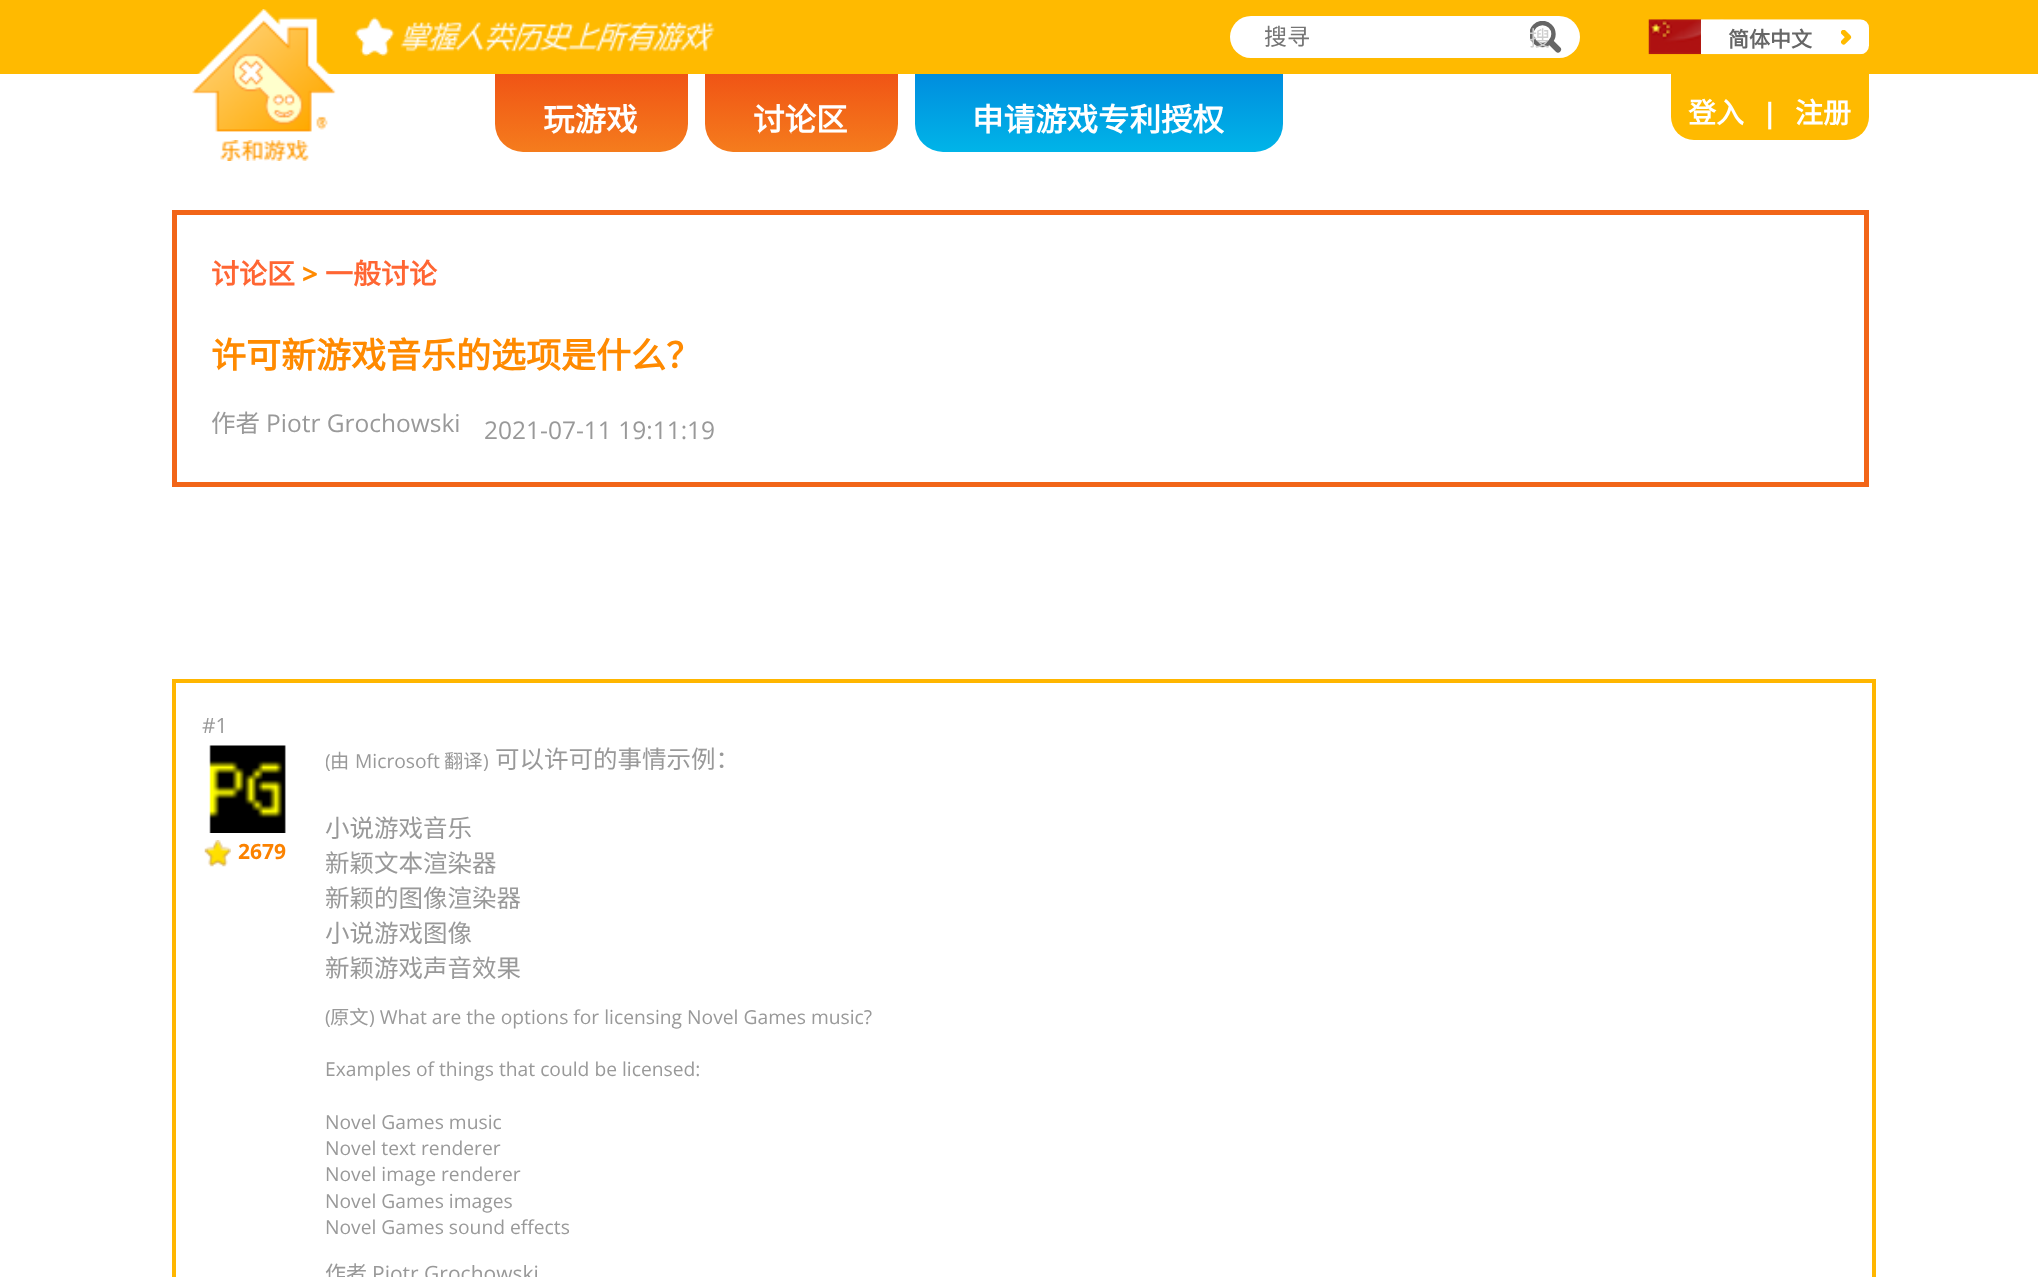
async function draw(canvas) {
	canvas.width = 2038;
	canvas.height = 1277;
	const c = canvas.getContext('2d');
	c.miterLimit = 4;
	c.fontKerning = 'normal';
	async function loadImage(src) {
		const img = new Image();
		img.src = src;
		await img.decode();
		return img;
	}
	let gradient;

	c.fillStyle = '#fff';
	c.fillRect(0, 0, 2038, 1277);
	c.fillStyle = '#ffba00';
	c.fillRect(0, 0, 2038, 74);
	c.drawImage(await loadImage('img1.png'), 192, 9, 144, 152);
	c.drawImage(await loadImage('img2.png'), 355, 17, 360, 39);
	c.fillStyle = '#fff';
	c.beginPath();
	c.roundRect(1230, 16, 350, 42, 21);
	c.fill();
	c.font = '23px Noto Sans CJK SC';
	c.fillStyle = '#757575';
	c.fillText('搜寻', 1264, 45);
	c.beginPath();
	c.moveTo(1547, 38.5);
	c.lineTo(1558, 49.5);
	c.strokeStyle = '#666';
	c.lineWidth = 6.1;
	c.lineCap = 'round';
	c.stroke();
	c.fillStyle = '#fff';
	c.beginPath();
	c.arc(1542.5, 34, 11, 0, 2 * Math.PI);
	c.fill();
	c.save();
	c.beginPath();
	c.rect(1530, 21, 31, 32);
	c.clip();
	c.beginPath();
	c.arc(1542.5, 34, 11, 0, 2 * Math.PI);
	c.lineWidth = 4.4;
	c.stroke();
	c.restore();
	c.font = '21px Noto Sans CJK SC';
	c.fillStyle = '#cecece';
	c.fillText('搜', 1529, 46);
	c.drawImage(await loadImage('img3.png'), 1648, 19, 221, 36);
	c.font = 'bold 21px Noto Sans CJK SC';
	c.fillStyle = '#666';
	c.fillText('简体中文', 1728, 47);
	gradient = c.createLinearGradient(592, 73, 592, 152);
	gradient.addColorStop(0, '#f05415');
	gradient.addColorStop(1, '#f57c1d');
	c.fillStyle = gradient;
	c.beginPath();
	c.roundRect(495, 74, 193, 78, [0, 0, 28, 28]);
	c.fill();
	c.font = 'bold 31.5px Noto Sans CJK SC';
	c.fillStyle = '#fff';
	c.fillText('玩游戏', 543, 131);
	gradient = c.createLinearGradient(802, 73, 802, 152);
	gradient.addColorStop(0, '#f05415');
	gradient.addColorStop(1, '#f57c1d');
	c.fillStyle = gradient;
	c.beginPath();
	c.roundRect(705, 74, 193, 78, [0, 0, 28, 28]);
	c.fill();
	c.fillStyle = '#fff';
	c.fillText('讨论区', 753, 131);
	gradient = c.createLinearGradient(1099, 73, 1099, 152);
	gradient.addColorStop(0, '#008dde');
	gradient.addColorStop(1, '#00b4e8');
	c.fillStyle = gradient;
	c.beginPath();
	c.roundRect(915, 74, 368, 78, [0, 0, 28, 28]);
	c.fill();
	c.fillStyle = '#fff';
	c.fillText('申请游戏专利授权', 972, 131);
	c.fillStyle = '#ffba00';
	c.beginPath();
	c.roundRect(1671, 74, 91, 66, [0, 0, 0, 23]);
	c.fill();
	c.font = 'bold 28px Noto Sans CJK SC';
	c.fillStyle = '#fff';
	c.fillText('登入', 1688, 123);
	c.fillStyle = '#ffba00';
	c.beginPath();
	c.roundRect(1762, 74, 107, 66, [0, 0, 23, 0]);
	c.fill();
	c.font = 'bold 28px Open Sans';
	c.fillStyle = '#fff';
	c.fillText('|', 1762, 123);
	c.font = 'bold 28px Noto Sans CJK SC';
	c.fillText('注册', 1795, 123);
	c.strokeStyle = '#f26518';
	c.lineWidth = 5;
	c.strokeRect(174.5, 212.5, 1692, 272);
	c.fillStyle = '#f63';
	c.fillText('讨论区', 211, 284);
	c.font = 'bold 28px Open Sans';
	c.fillStyle = '#ff8a00';
	c.fillText('>', 302, 284);
	c.font = 'bold 28px Noto Sans CJK SC';
	c.fillStyle = '#f63';
	c.fillText('一般讨论', 325, 284);
	c.font = 'bold 35px Noto Sans CJK SC';
	c.fillStyle = '#ff8a00';
	c.fillText('许可新游戏音乐的选项是什么？', 211, 368);
	c.font = '24.5px Noto Sans CJK SC';
	c.fillStyle = '#999';
	c.fillText('作者', 211, 432);
	c.font = '24.5px Open Sans';
	c.fillText('Piotr Grochowski', 266, 432);
	c.fillText('2021-07-11 19:11:19', 484, 439);
	c.strokeStyle = '#ffb600';
	c.lineWidth = 4;
	c.strokeRect(174, 681, 1700, 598);
	c.font = '21px Open Sans';
	c.fillText('#1', 202, 733);
	c.drawImage(await loadImage('img4.png'), 209, 745, 77, 88);
	c.save();
	c.beginPath();
	c.rect(326, 740, 1519, 244);
	c.clip();
	c.font = '19.25px Open Sans';
	c.fillText('(', 325, 768);
	c.restore();
	c.font = '19.25px Noto Sans CJK SC';
	c.fillText('由', 330, 768);
	c.font = '19.25px Open Sans';
	c.fillText('Microsoft', 355, 768);
	c.font = '19.25px Noto Sans CJK SC';
	c.fillText('翻译', 444, 768);
	c.font = '19.25px Open Sans';
	c.fillText(')', 483, 768);
	c.font = '24.5px Noto Sans CJK SC';
	c.fillText('可以许可的事情示例：', 495, 768);
	c.fillText('小说游戏音乐', 325, 837);
	c.save();
	c.beginPath();
	c.rect(326, 740, 1519, 244);
	c.clip();
	c.fillText('新颖文本渲染器', 325, 872);
	c.fillText('新颖的图像渲染器', 325, 907);
	c.restore();
	c.fillText('小说游戏图像', 325, 942);
	c.save();
	c.beginPath();
	c.rect(326, 740, 1519, 244);
	c.clip();
	c.fillText('新颖游戏声音效果', 325, 977);
	c.restore();
	c.drawImage(await loadImage('img5.png'), 204, 840, 27, 27);
	c.font = 'bold 21px Open Sans';
	c.fillStyle = '#fb8200';
	c.fillText('2679', 238, 859);
	c.font = '19.25px Open Sans';
	c.fillStyle = '#999';
	c.fillText('(', 325, 1024);
	c.font = '19.25px Noto Sans CJK SC';
	c.fillText('原文', 330, 1024);
	c.font = '19.25px Open Sans';
	for (const [text, x, y] of [
		[') What are the options for licensing Novel Games music?', 369, 1024],
		['Examples of things that could be licensed:', 325, 1076],
		['Novel Games music', 325, 1129],
		['Novel text renderer', 325, 1155],
		['Novel image renderer', 325, 1181],
		['Novel Games images', 325, 1208],
		['Novel Games sound effects', 325, 1234],
	]) {
		c.fillText(text, x, y);
	}
	c.font = '21px Noto Sans CJK SC';
	c.fillText('作者', 325, 1281);
	c.font = '21px Open Sans';
	c.fillText('Piotr Grochowski', 372, 1281);
}

draw(document.querySelector('canvas'));
